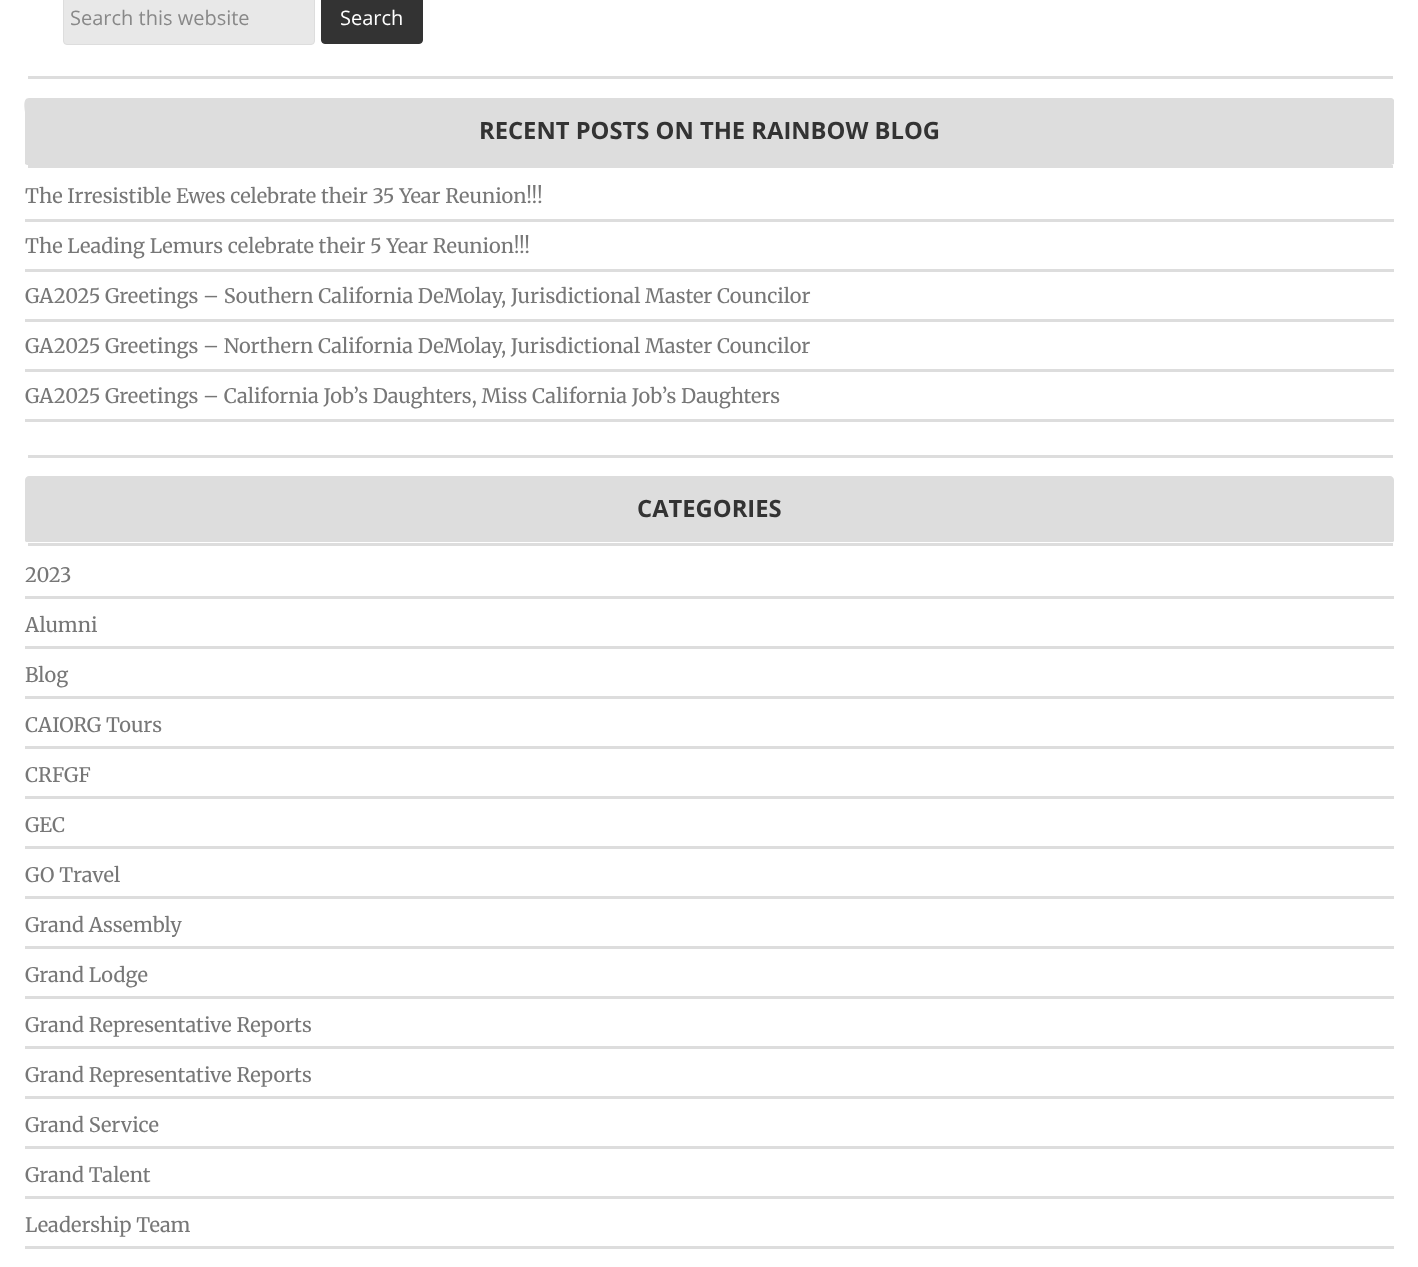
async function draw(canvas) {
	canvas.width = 1418;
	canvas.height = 1267;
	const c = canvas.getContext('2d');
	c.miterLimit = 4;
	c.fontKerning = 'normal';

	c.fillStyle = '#fff';
	c.fillRect(0, 0, 1418, 1267);
	c.fillStyle = '#ddd';
	c.fillRect(28, 76, 1365, 3);
	c.fillStyle = '#e8e8e8';
	c.beginPath();
	c.roundRect(63.5, -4.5, 251, 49, 3.5);
	c.fill();
	c.strokeStyle = '#ddd';
	c.stroke();
	c.font = '20px Open Sans';
	c.fillStyle = '#888';
	c.fillText('Search this website', 70, 25);
	c.fillStyle = '#333';
	c.beginPath();
	c.roundRect(321.5, -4.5, 101, 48, 3.5);
	c.fill();
	c.strokeStyle = '#333';
	c.stroke();
	c.fillStyle = '#fff';
	c.fillText('Search', 340, 25);
	c.fillStyle = '#ddd';
	c.fillRect(28, 455, 1365, 3);
	c.beginPath();
	c.moveTo(29, 98);
	c.lineTo(1391, 98);
	c.bezierCurveTo(1393, 98, 1393, 99, 1394, 100);
	c.lineTo(1394, 164);
	c.lineTo(1391, 165);
	c.lineTo(27, 165);
	c.lineTo(25, 164);
	c.lineTo(25, 112);
	c.bezierCurveTo(25, 110, 22, 98, 29, 98);
	c.closePath();
	c.fill();
	c.fillRect(28, 165, 1365, 3);
	c.font = 'bold 23.75px Open Sans';
	c.fillStyle = '#333';
	c.fillText('RECENT POSTS ON THE RAINBOW BLOG', 479, 139);
	c.fillStyle = '#ddd';
	c.fillRect(25, 219, 1369, 3);
	c.font = '20px Merriweather';
	c.fillStyle = '#777';
	c.fillText('The Irresistible Ewes celebrate their 35 Year Reunion!!!', 25, 203);
	c.fillStyle = '#ddd';
	c.fillRect(25, 269, 1369, 3);
	c.fillStyle = '#777';
	c.fillText('The Leading Lemurs celebrate their 5 Year Reunion!!!', 25, 253);
	c.fillStyle = '#ddd';
	c.fillRect(25, 319, 1369, 3);
	c.fillStyle = '#777';
	c.fillText('GA2025 Greetings – Southern California DeMolay, Jurisdictional Master Councilor', 25, 303);
	c.fillStyle = '#ddd';
	c.fillRect(25, 369, 1369, 3);
	c.fillStyle = '#777';
	c.fillText('GA2025 Greetings – Northern California DeMolay, Jurisdictional Master Councilor', 25, 353);
	c.fillStyle = '#ddd';
	c.fillRect(25, 419, 1369, 3);
	c.fillStyle = '#777';
	c.fillText('GA2025 Greetings – California Job’s Daughters, Miss California Job’s Daughters', 25, 403);
	c.fillStyle = '#ddd';
	c.beginPath();
	c.moveTo(29, 476);
	c.lineTo(1390, 476);
	c.bezierCurveTo(1392, 476, 1394, 478, 1394, 480);
	c.lineTo(1394, 541);
	c.bezierCurveTo(1394, 542, 1392, 542, 1390, 542);
	c.lineTo(29, 542);
	c.bezierCurveTo(27, 542, 25, 542, 25, 541);
	c.lineTo(25, 480);
	c.bezierCurveTo(25, 478, 27, 476, 29, 476);
	c.closePath();
	c.fill();
	c.fillRect(28, 543, 1365, 3);
	c.font = 'bold 23.75px Open Sans';
	c.fillStyle = '#333';
	c.fillText('CATEGORIES', 637, 517);
	c.fillStyle = '#ddd';
	c.fillRect(25, 596, 1369, 3);
	c.font = '20px Merriweather';
	c.fillStyle = '#777';
	c.fillText('2023', 25, 582);
	c.fillStyle = '#ddd';
	c.fillRect(25, 646, 1369, 3);
	c.fillStyle = '#777';
	c.fillText('Alumni', 25, 632);
	c.fillStyle = '#ddd';
	c.fillRect(25, 696, 1369, 3);
	c.fillStyle = '#777';
	c.fillText('Blog', 25, 682);
	c.fillStyle = '#ddd';
	c.fillRect(25, 746, 1369, 3);
	c.fillStyle = '#777';
	c.fillText('CAIORG Tours', 25, 732);
	c.fillStyle = '#ddd';
	c.fillRect(25, 796, 1369, 3);
	c.fillStyle = '#777';
	c.fillText('CRFGF', 25, 782);
	c.fillStyle = '#ddd';
	c.fillRect(25, 846, 1369, 3);
	c.fillStyle = '#777';
	c.fillText('GEC', 25, 832);
	c.fillStyle = '#ddd';
	c.fillRect(25, 896, 1369, 3);
	c.fillStyle = '#777';
	c.fillText('GO Travel', 25, 882);
	c.fillStyle = '#ddd';
	c.fillRect(25, 946, 1369, 3);
	c.fillStyle = '#777';
	c.fillText('Grand Assembly', 25, 932);
	c.fillStyle = '#ddd';
	c.fillRect(25, 996, 1369, 3);
	c.fillStyle = '#777';
	c.fillText('Grand Lodge', 25, 982);
	c.fillStyle = '#ddd';
	c.fillRect(25, 1046, 1369, 3);
	c.fillStyle = '#777';
	c.fillText('Grand Representative Reports', 25, 1032);
	c.fillStyle = '#ddd';
	c.fillRect(25, 1096, 1369, 3);
	c.fillStyle = '#777';
	c.fillText('Grand Representative Reports', 25, 1082);
	c.fillStyle = '#ddd';
	c.fillRect(25, 1146, 1369, 3);
	c.fillStyle = '#777';
	c.fillText('Grand Service', 25, 1132);
	c.fillStyle = '#ddd';
	c.fillRect(25, 1196, 1369, 3);
	c.fillStyle = '#777';
	c.fillText('Grand Talent', 25, 1182);
	c.fillStyle = '#ddd';
	c.fillRect(25, 1246, 1369, 3);
	c.fillStyle = '#777';
	c.fillText('Leadership Team', 25, 1232);
}

draw(document.querySelector('canvas'));
